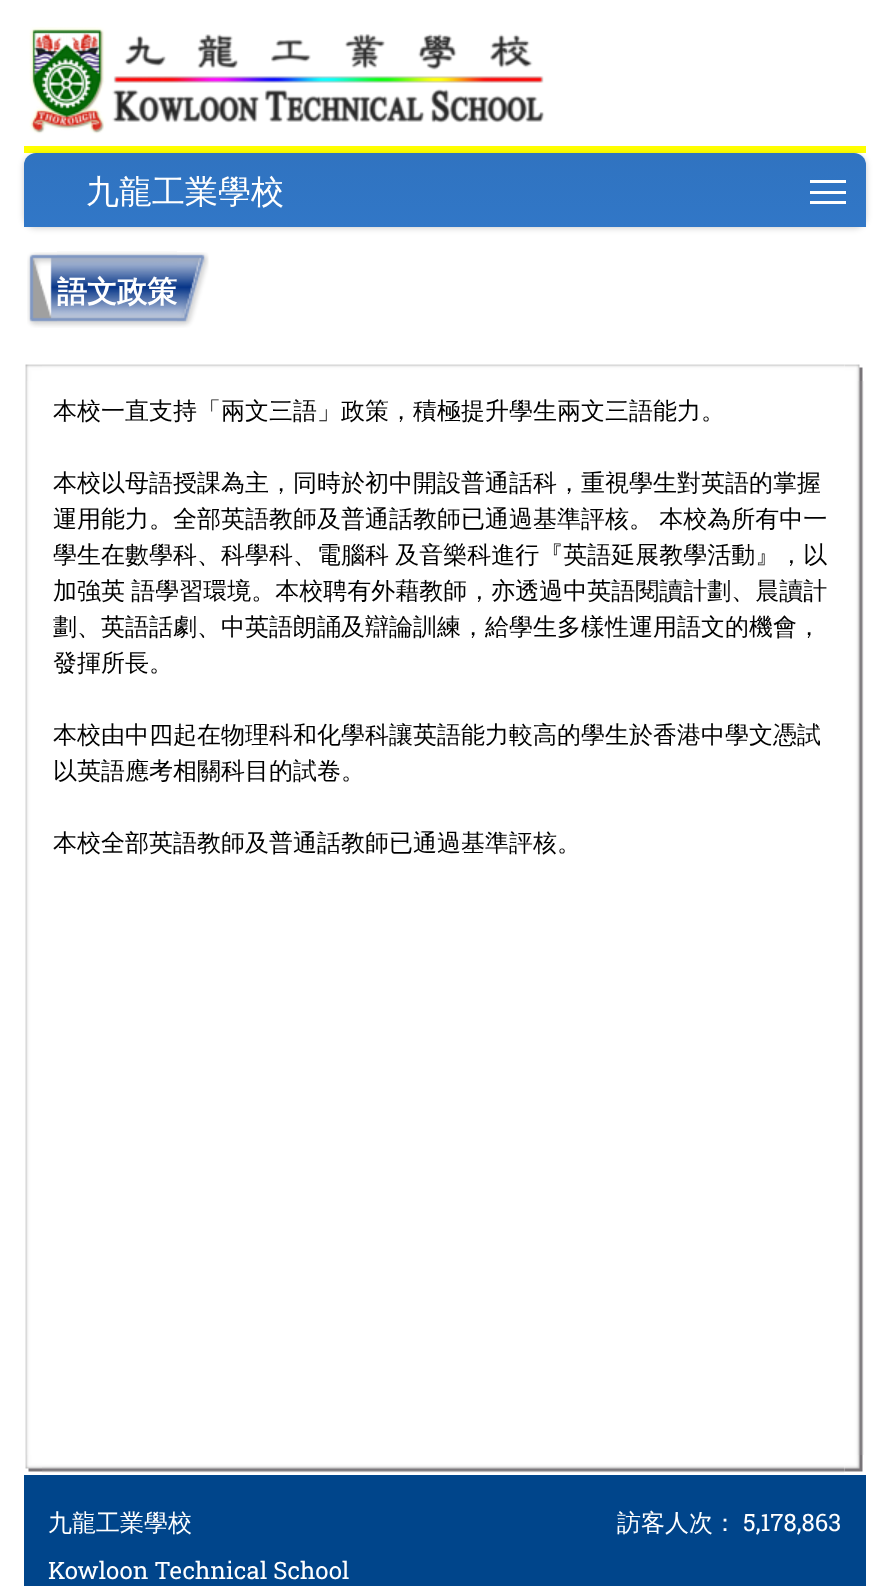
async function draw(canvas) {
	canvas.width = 889;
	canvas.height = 1586;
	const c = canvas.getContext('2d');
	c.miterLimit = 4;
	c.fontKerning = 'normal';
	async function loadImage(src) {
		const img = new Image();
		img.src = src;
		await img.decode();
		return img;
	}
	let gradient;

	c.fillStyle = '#fff';
	c.fillRect(0, 0, 889, 1586);
	c.drawImage(await loadImage('img1.png'), 29, 27, 516, 107);
	c.fillStyle = '#ff0';
	c.fillRect(24, 146, 842, 7);
	c.fillStyle = '#00000033';
	c.filter = 'blur(3px)';
	c.beginPath();
	c.roundRect(24, 155, 842, 73, 12);
	c.fill();
	c.filter = 'none';
	gradient = c.createLinearGradient(445, 153, 445, 227);
	gradient.addColorStop(0, '#3073c0');
	gradient.addColorStop(1, '#3177c7');
	c.fillStyle = gradient;
	c.beginPath();
	c.roundRect(24, 153, 842, 74, [12, 12, 0, 0]);
	c.fill();
	c.font = '500 33px WenQuanYi Zen Hei';
	c.fillStyle = '#fff';
	c.fillText('九龍工業學校', 86, 203);
	for (const [x, y, w, h, color] of [
		[810, 191, 36, 3, '#fff'],
		[810, 180, 36, 3, '#fff'],
		[810, 201, 36, 3, '#fff'],
	]) {
		c.fillStyle = color;
		c.fillRect(x, y, w, h);
	}
	c.drawImage(await loadImage('img2.png'), 27, 252, 30, 76);
	c.drawImage(await loadImage('img3.png'), 57, 251, 120, 77);
	c.font = 'bold 30px WenQuanYi Zen Hei';
	c.fillText('語文政策', 57, 302);
	c.drawImage(await loadImage('img4.png'), 177, 252, 32, 76);
	c.drawImage(await loadImage('img5.png'), 25, 364, 839, 1109);
	c.font = '500 24px WenQuanYi Zen Hei';
	c.fillStyle = '#000';
	c.fillText('本校一直支持「兩文三語」政策，積極提升學生兩文三語能力。', 53, 419);
	c.fillText('本校以母語授課為主，同時於初中開設普通話科，重視學生對英語的掌握', 53, 491);
	c.wordSpacing = '-1px';
	for (const [text, x, y] of [
		['運用能力。全部英語教師及普通話教師已通過基準評核。 本校為所有中一', 53, 527],
		['學生在數學科、科學科、電腦科 及音樂科進行『英語延展教學活動』，以', 53, 563],
		['加強英 語學習環境。本校聘有外藉教師，亦透過中英語閱讀計劃、晨讀計', 53, 599],
	]) {
		c.fillText(text, x, y);
	}
	c.wordSpacing = '0px';
	for (const [text, x, y] of [
		['劃、英語話劇、中英語朗誦及辯論訓練，給學生多樣性運用語文的機會，', 53, 635],
		['發揮所長。', 53, 671],
		['本校由中四起在物理科和化學科讓英語能力較高的學生於香港中學文憑試', 53, 743],
		['以英語應考相關科目的試卷。', 53, 779],
		['本校全部英語教師及普通話教師已通過基準評核。', 53, 851],
	]) {
		c.fillText(text, x, y);
	}
	c.fillStyle = '#00458b';
	c.fillRect(24, 1475, 842, 111);
	c.fillStyle = '#fff';
	c.fillText('九龍工業學校', 48, 1531);
	c.font = '24px Roboto Slab';
	c.fillText('Kowloon Technical School', 48, 1579);
	c.font = '500 24px WenQuanYi Zen Hei';
	c.fillText('訪客人次：', 617, 1531);
	c.font = '24px Roboto Slab';
	c.fillText('5,178,863', 743, 1531);
}

draw(document.querySelector('canvas'));
